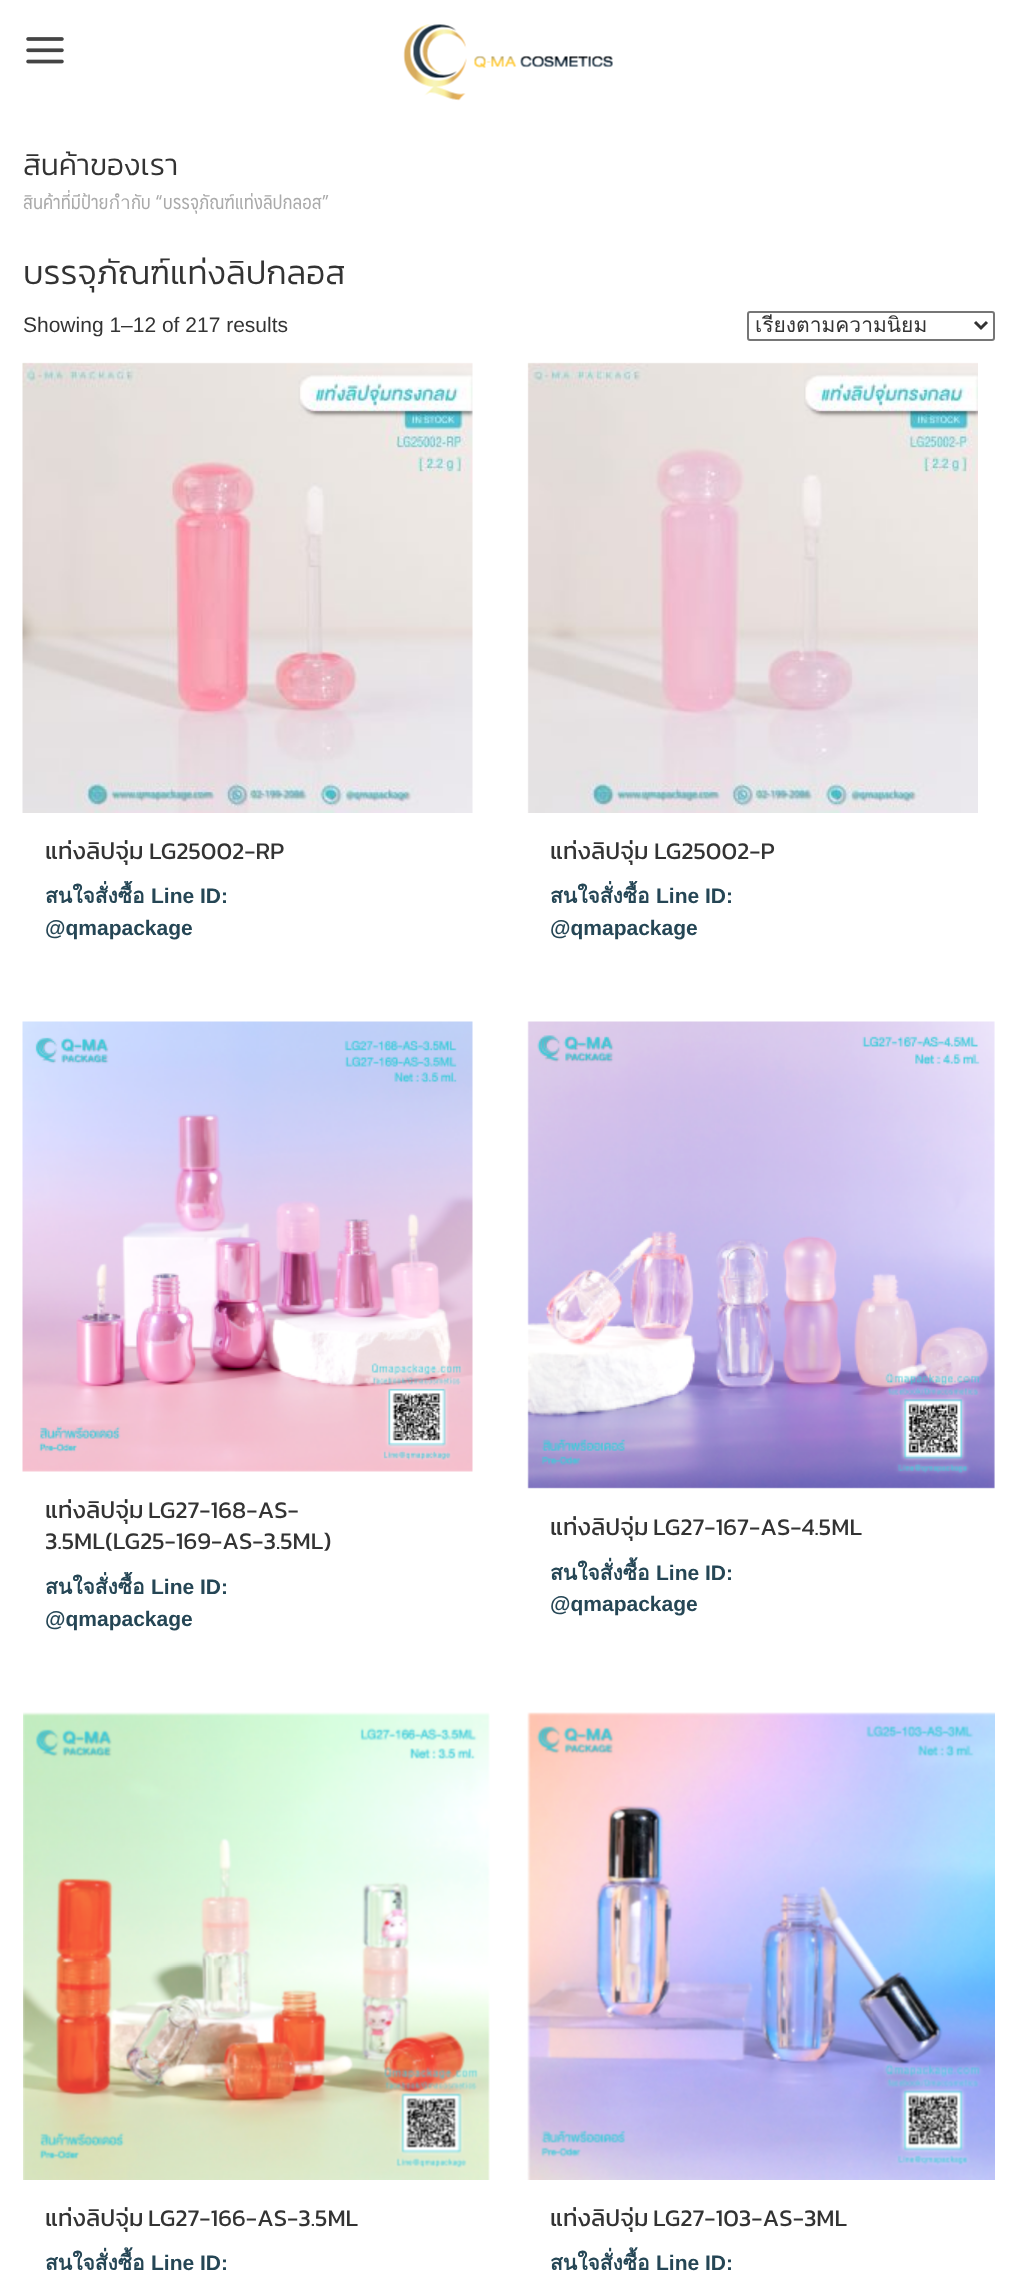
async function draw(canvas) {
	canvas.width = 1017;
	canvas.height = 2292;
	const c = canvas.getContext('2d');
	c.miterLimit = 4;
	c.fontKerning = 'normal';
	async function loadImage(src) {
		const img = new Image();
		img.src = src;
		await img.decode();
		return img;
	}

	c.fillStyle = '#fff';
	c.fillRect(0, 0, 1017, 2292);
	c.drawImage(await loadImage('img1.png'), 26, 37, 38, 27);
	c.drawImage(await loadImage('img2.png'), 403, 24, 210, 77);
	c.font = '300 30px Kanit';
	c.fillStyle = '#333';
	c.fillText('สินค้าของเรา', 23, 175);
	c.font = '19.25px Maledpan';
	c.fillStyle = '#aaa';
	c.fillText('สินค้าที่มีป้ายกำกับ “บรรจุภัณฑ์แท่งลิปกลอส”', 23, 209);
	c.font = '300 33.5px Kanit';
	c.fillStyle = '#333';
	c.fillText('บรรจุภัณฑ์แท่งลิปกลอส', 23, 284);
	c.font = '21px Liberation Sans';
	c.fillText('Showing 1–12 of 217 results', 23, 332);
	c.beginPath();
	c.roundRect(748, 312, 246, 28, 2);
	c.strokeStyle = '#767676';
	c.lineWidth = 2;
	c.stroke();
	c.beginPath();
	c.moveTo(975, 322);
	c.lineTo(981, 328);
	c.lineTo(987, 322);
	c.strokeStyle = '#333';
	c.lineWidth = 3;
	c.stroke();
	c.save();
	c.beginPath();
	c.rect(755, 312, 214, 27);
	c.clip();
	c.font = '21px Loma';
	c.fillText('เรียงตามความนิยม', 755, 332);
	c.restore();
	c.drawImage(await loadImage('img3.png'), 22, 362, 451, 451);
	c.font = '24px Kanit';
	c.fillText('แท่งลิปจุ่ม LG25002-RP', 45, 859);
	c.save();
	c.beginPath();
	c.rect(23, 881, 466, 63);
	c.clip();
	c.font = 'bold 21px Loma';
	c.fillStyle = '#254655';
	c.fillText('สนใจสั่งซื้อ', 45, 903);
	c.restore();
	c.font = 'bold 21px Liberation Sans';
	c.fillStyle = '#254655';
	c.fillText('Line ID:', 151, 903);
	c.fillText('@qmapackage', 45, 935);
	c.drawImage(await loadImage('img4.png'), 527, 362, 451, 451);
	c.font = '24px Kanit';
	c.fillStyle = '#333';
	c.fillText('แท่งลิปจุ่ม LG25002-P', 550, 859);
	c.save();
	c.beginPath();
	c.rect(528, 881, 467, 63);
	c.clip();
	c.font = 'bold 21px Loma';
	c.fillStyle = '#254655';
	c.fillText('สนใจสั่งซื้อ', 550, 903);
	c.restore();
	c.font = 'bold 21px Liberation Sans';
	c.fillStyle = '#254655';
	c.fillText('Line ID:', 656, 903);
	c.fillText('@qmapackage', 550, 935);
	c.drawImage(await loadImage('img5.png'), 22, 1021, 451, 451);
	c.wordSpacing = '-1px';
	c.font = '24px Kanit';
	c.fillStyle = '#333';
	c.fillText('แท่งลิปจุ่ม LG27-168-AS-', 45, 1518);
	c.wordSpacing = '0px';
	c.fillText('3.5ML(LG25-169-AS-3.5ML)', 45, 1549);
	c.save();
	c.beginPath();
	c.rect(23, 1572, 466, 63);
	c.clip();
	c.font = 'bold 21px Loma';
	c.fillStyle = '#254655';
	c.fillText('สนใจสั่งซื้อ', 45, 1594);
	c.restore();
	c.font = 'bold 21px Liberation Sans';
	c.fillStyle = '#254655';
	c.fillText('Line ID:', 151, 1594);
	c.fillText('@qmapackage', 45, 1626);
	c.drawImage(await loadImage('img6.png'), 527, 1021, 468, 468);
	c.wordSpacing = '-1px';
	c.font = '24px Kanit';
	c.fillStyle = '#333';
	c.fillText('แท่งลิปจุ่ม LG27-167-AS-4.5ML', 550, 1535);
	c.wordSpacing = '0px';
	c.font = 'bold 21px Loma';
	c.fillStyle = '#254655';
	c.fillText('สนใจสั่งซื้อ', 550, 1580);
	c.font = 'bold 21px Liberation Sans';
	c.fillText('Line ID:', 656, 1580);
	c.fillText('@qmapackage', 550, 1611);
	c.drawImage(await loadImage('img7.png'), 23, 1712, 467, 468);
	c.wordSpacing = '-1px';
	c.font = '24px Kanit';
	c.fillStyle = '#333';
	c.fillText('แท่งลิปจุ่ม LG27-166-AS-3.5ML', 45, 2226);
	c.wordSpacing = '0px';
	c.font = 'bold 21px Loma';
	c.fillStyle = '#254655';
	c.fillText('สนใจสั่งซื้อ', 45, 2270);
	c.font = 'bold 21px Liberation Sans';
	c.fillText('Line ID:', 151, 2270);
	c.drawImage(await loadImage('img8.png'), 527, 1712, 468, 468);
	c.wordSpacing = '-1px';
	c.font = '24px Kanit';
	c.fillStyle = '#333';
	c.fillText('แท่งลิปจุ่ม LG27-103-AS-3ML', 550, 2226);
	c.wordSpacing = '0px';
	c.font = 'bold 21px Loma';
	c.fillStyle = '#254655';
	c.fillText('สนใจสั่งซื้อ', 550, 2270);
	c.font = 'bold 21px Liberation Sans';
	c.fillText('Line ID:', 656, 2270);
}

draw(document.querySelector('canvas'));
